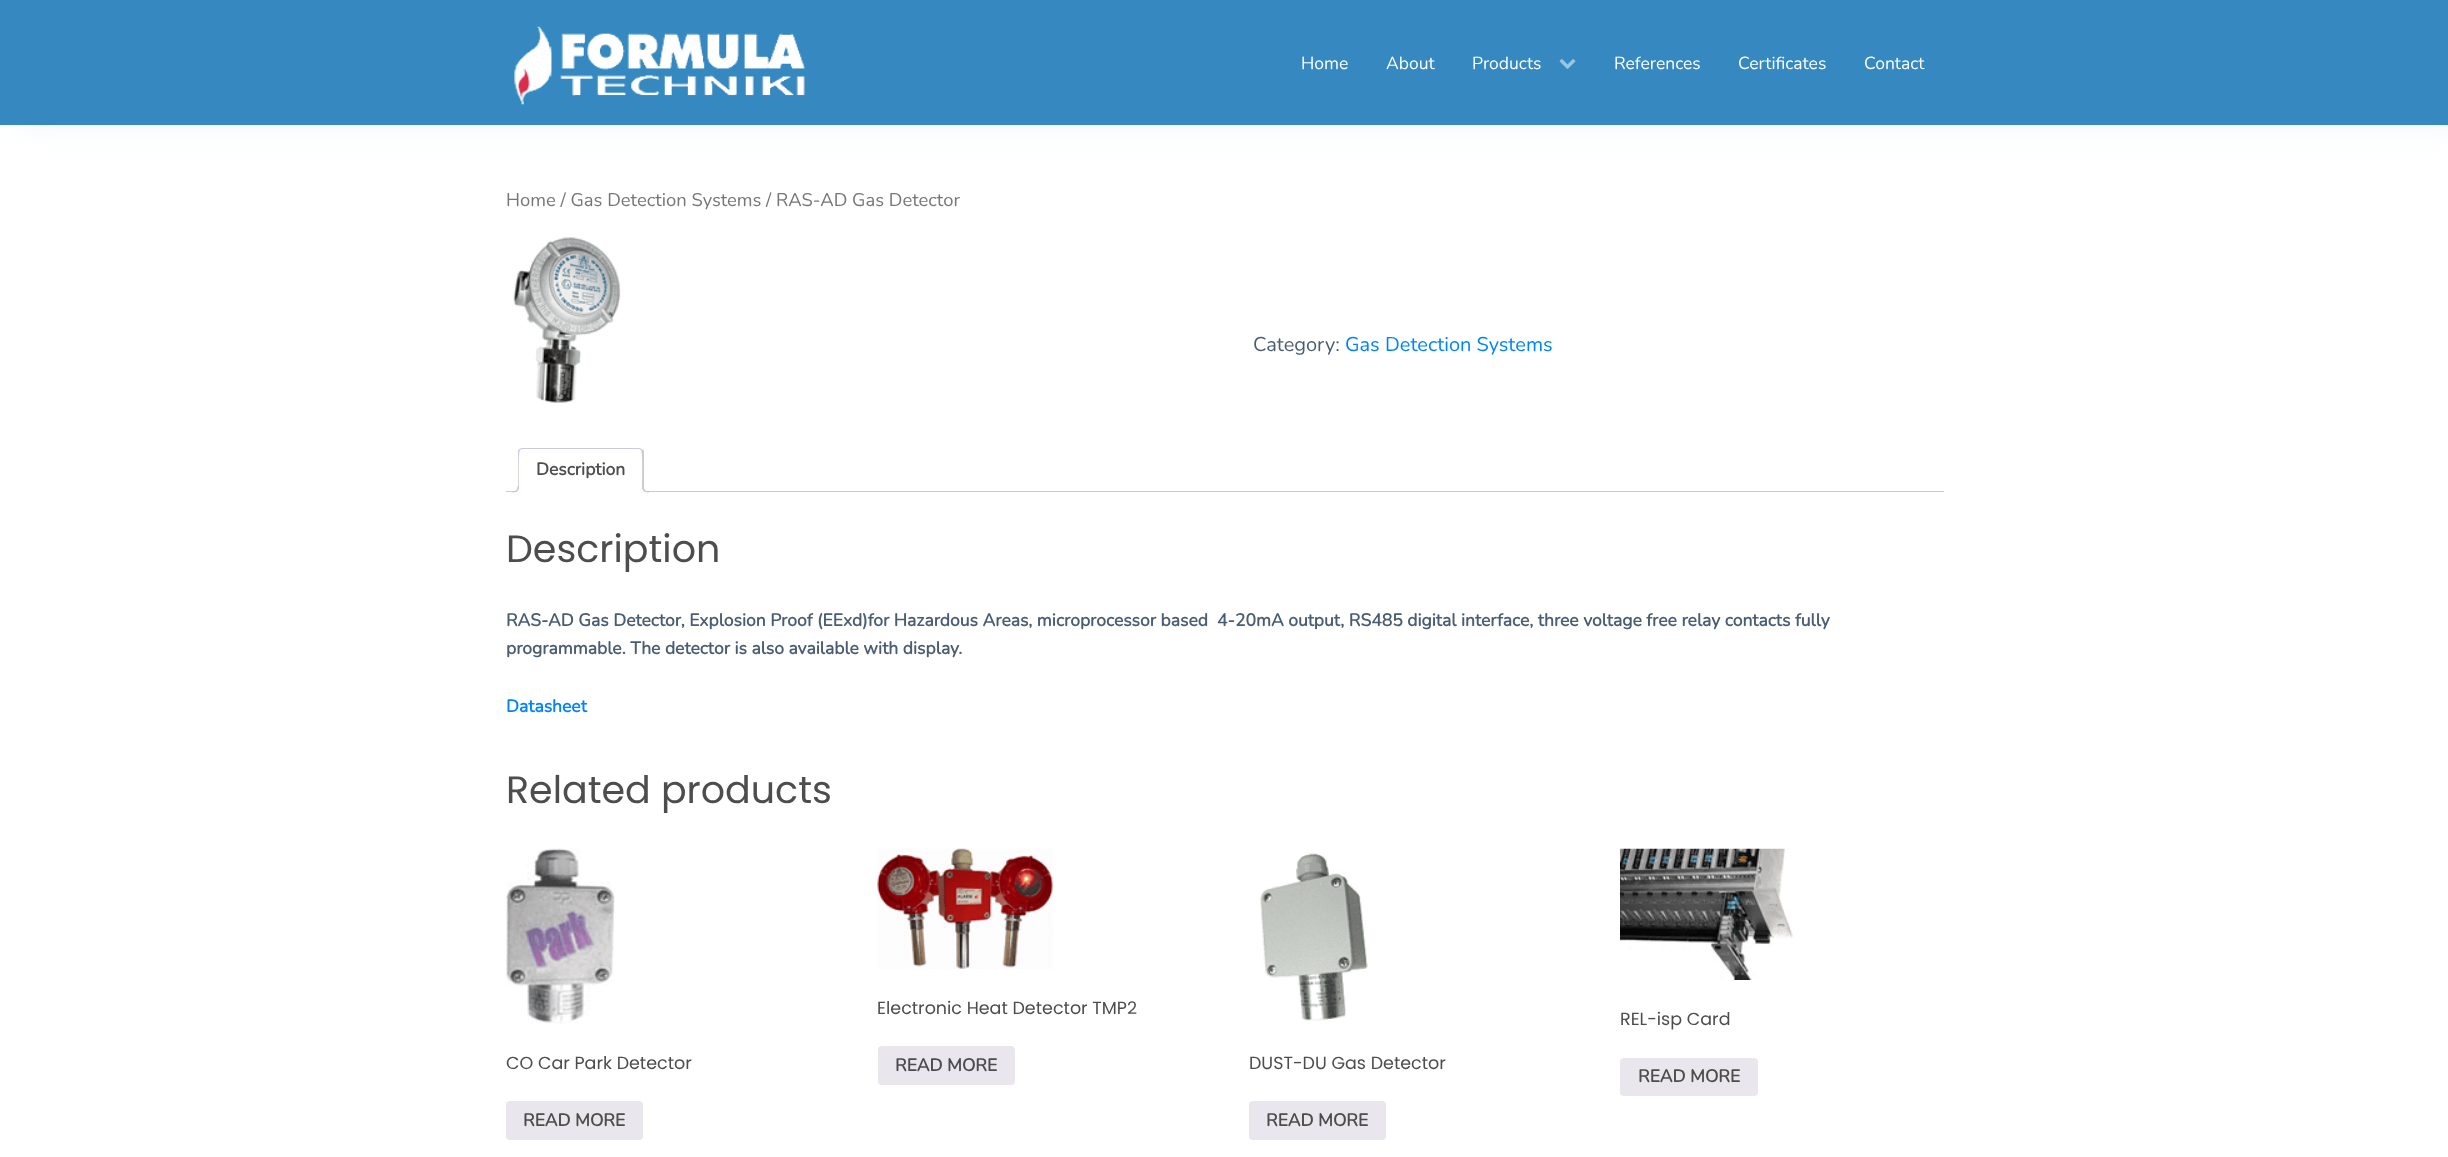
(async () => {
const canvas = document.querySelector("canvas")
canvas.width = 2448
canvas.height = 1157
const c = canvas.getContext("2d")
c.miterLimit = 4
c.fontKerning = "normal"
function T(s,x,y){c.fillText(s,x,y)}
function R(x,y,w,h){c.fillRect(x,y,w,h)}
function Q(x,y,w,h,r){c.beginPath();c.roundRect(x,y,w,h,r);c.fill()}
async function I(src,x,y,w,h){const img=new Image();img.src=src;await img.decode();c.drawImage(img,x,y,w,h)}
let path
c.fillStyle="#fff"
R(0,0,2448,1157)
c.fillStyle="#c8dbef4d"
c.filter="blur(15.5px)"
c.beginPath()
c.rect(19,0,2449,125)
c.fill()
c.filter="none"
c.fillStyle="#3589c0"
R(0,0,2448,125)
await I("1.png",514,26,291,79)
c.font="17.5px Nunito"
c.fillStyle="#fff"
T("Home",1301,69)
T("About",1386,69)
T("Products",1472,69)
await I("2.png",1559,59,17,10)
T("References",1614,69)
T("Certificates",1738,69)
T("Contact",1864,69)
c.font="18.4px Nunito"
c.fillStyle="#767676"
T("Home / Gas Detection Systems / RAS-AD Gas Detector",506,206)
await I("3.png",513,237,108,166)
c.font="20px Nunito"
c.fillStyle="#4b5d73"
T("Category:",1253,351)
c.fillStyle="#0083ff"
T("Gas Detection Systems",1345,351)
c.fillStyle="#cfc8d8"
R(506,491,1438,1)
c.fillStyle="#fff"
c.beginPath()
c.roundRect(518,448,126,45,[5,5,0,0])
c.fill()
c.fillStyle="#cfc8d8"
path = new Path2D("M522 448l-3 1l1 1l2-1h117l2 1l1-1l-3-1z")
c.fill(path)
path = new Path2D("M642 449l2 2v41l-2-1c0-5 1-39-1-41z")
c.fill(path)
c.fillStyle="#fff"
path = new Path2D("M643 492h-125l1-1h123z")
c.fill(path)
c.fillStyle="#cfc8d8"
path = new Path2D("M519 449c-1 1-1 2-1 3v40l1-1c0-5-1-39 1-41z")
c.fill(path)
c.font="bold 17.5px Nunito"
c.fillStyle="#4d4d4d"
T("Description",536,475)
c.save()
c.beginPath()
c.rect(506,448,1438,45)
c.clip()
c.fillStyle="#fff"
path = new Path2D("M515 492.5v2.5c4 0 6-2 6-6h-2.5c-.5 1.5-2 3-3.5 3.5z")
c.fill(path)
c.restore()
c.fillStyle="#cfc8d8"
path = new Path2D("M512.5 486h6.5c0 4.5-2 6.5-6.5 6.5zm0 0h5c0 4-1.5 5-5 5z")
c.fill(path,"evenodd")
c.save()
c.beginPath()
c.rect(506,448,1438,45)
c.clip()
c.fillStyle="#fff"
path = new Path2D("M640 489c0 4 2 6 6 6v-2.5c-1.5-.5-3-2-3.5-3.5z")
c.fill(path)
c.restore()
path = new Path2D("M642.5 486h6.5v6.5c-3.5 0-6.5-1.5-6.5-5zm1.5 0h5v5c-2.5 0-5-.5-5-3.5z")
c.fill(path,"evenodd")
c.font="38px Poppins"
c.fillStyle="#4d4d4d"
T("Description",506,562)
c.font="bold 17.5px Nunito"
c.fillStyle="#4b5d73"
T("RAS-AD Gas Detector, Explosion Proof (EExd)for Hazardous Areas, microprocessor based  4-20mA output, RS485 digital interface, three voltage free relay contacts fully",506,626)
T("programmable. The detector is also available with display.",506,654)
c.fillStyle="#0083ff"
T("Datasheet",506,712)
c.font="38px Poppins"
c.fillStyle="#4d4d4d"
T("Related products",506,803)
await I("4.png",877,848,176,121)
c.font="17.5px Poppins"
T("Electronic Heat Detector TMP2",877,1014)
c.fillStyle="#e9e6ed"
Q(878,1046,137,39,4)
c.font="bold 17.5px Nunito"
c.fillStyle="#4d4d4d"
T("READ MORE",895,1071)
await I("5.png",1620,848,173,132)
c.font="17.5px Poppins"
T("REL-isp Card",1620,1025)
c.fillStyle="#e9e6ed"
Q(1620,1058,138,38,4)
c.font="bold 17.5px Nunito"
c.fillStyle="#4d4d4d"
T("READ MORE",1638,1082)
await I("6.png",506,848,109,176)
c.font="17.5px Poppins"
T("CO Car Park Detector",506,1069)
c.fillStyle="#e9e6ed"
Q(506,1101,137,39,4)
c.font="bold 17.5px Nunito"
c.fillStyle="#4d4d4d"
T("READ MORE",523,1126)
await I("7.png",1260,853,108,168)
c.font="17.5px Poppins"
T("DUST-DU Gas Detector",1249,1069)
c.fillStyle="#e9e6ed"
Q(1249,1101,137,39,4)
c.font="bold 17.5px Nunito"
c.fillStyle="#4d4d4d"
T("READ MORE",1266,1126)
})()
